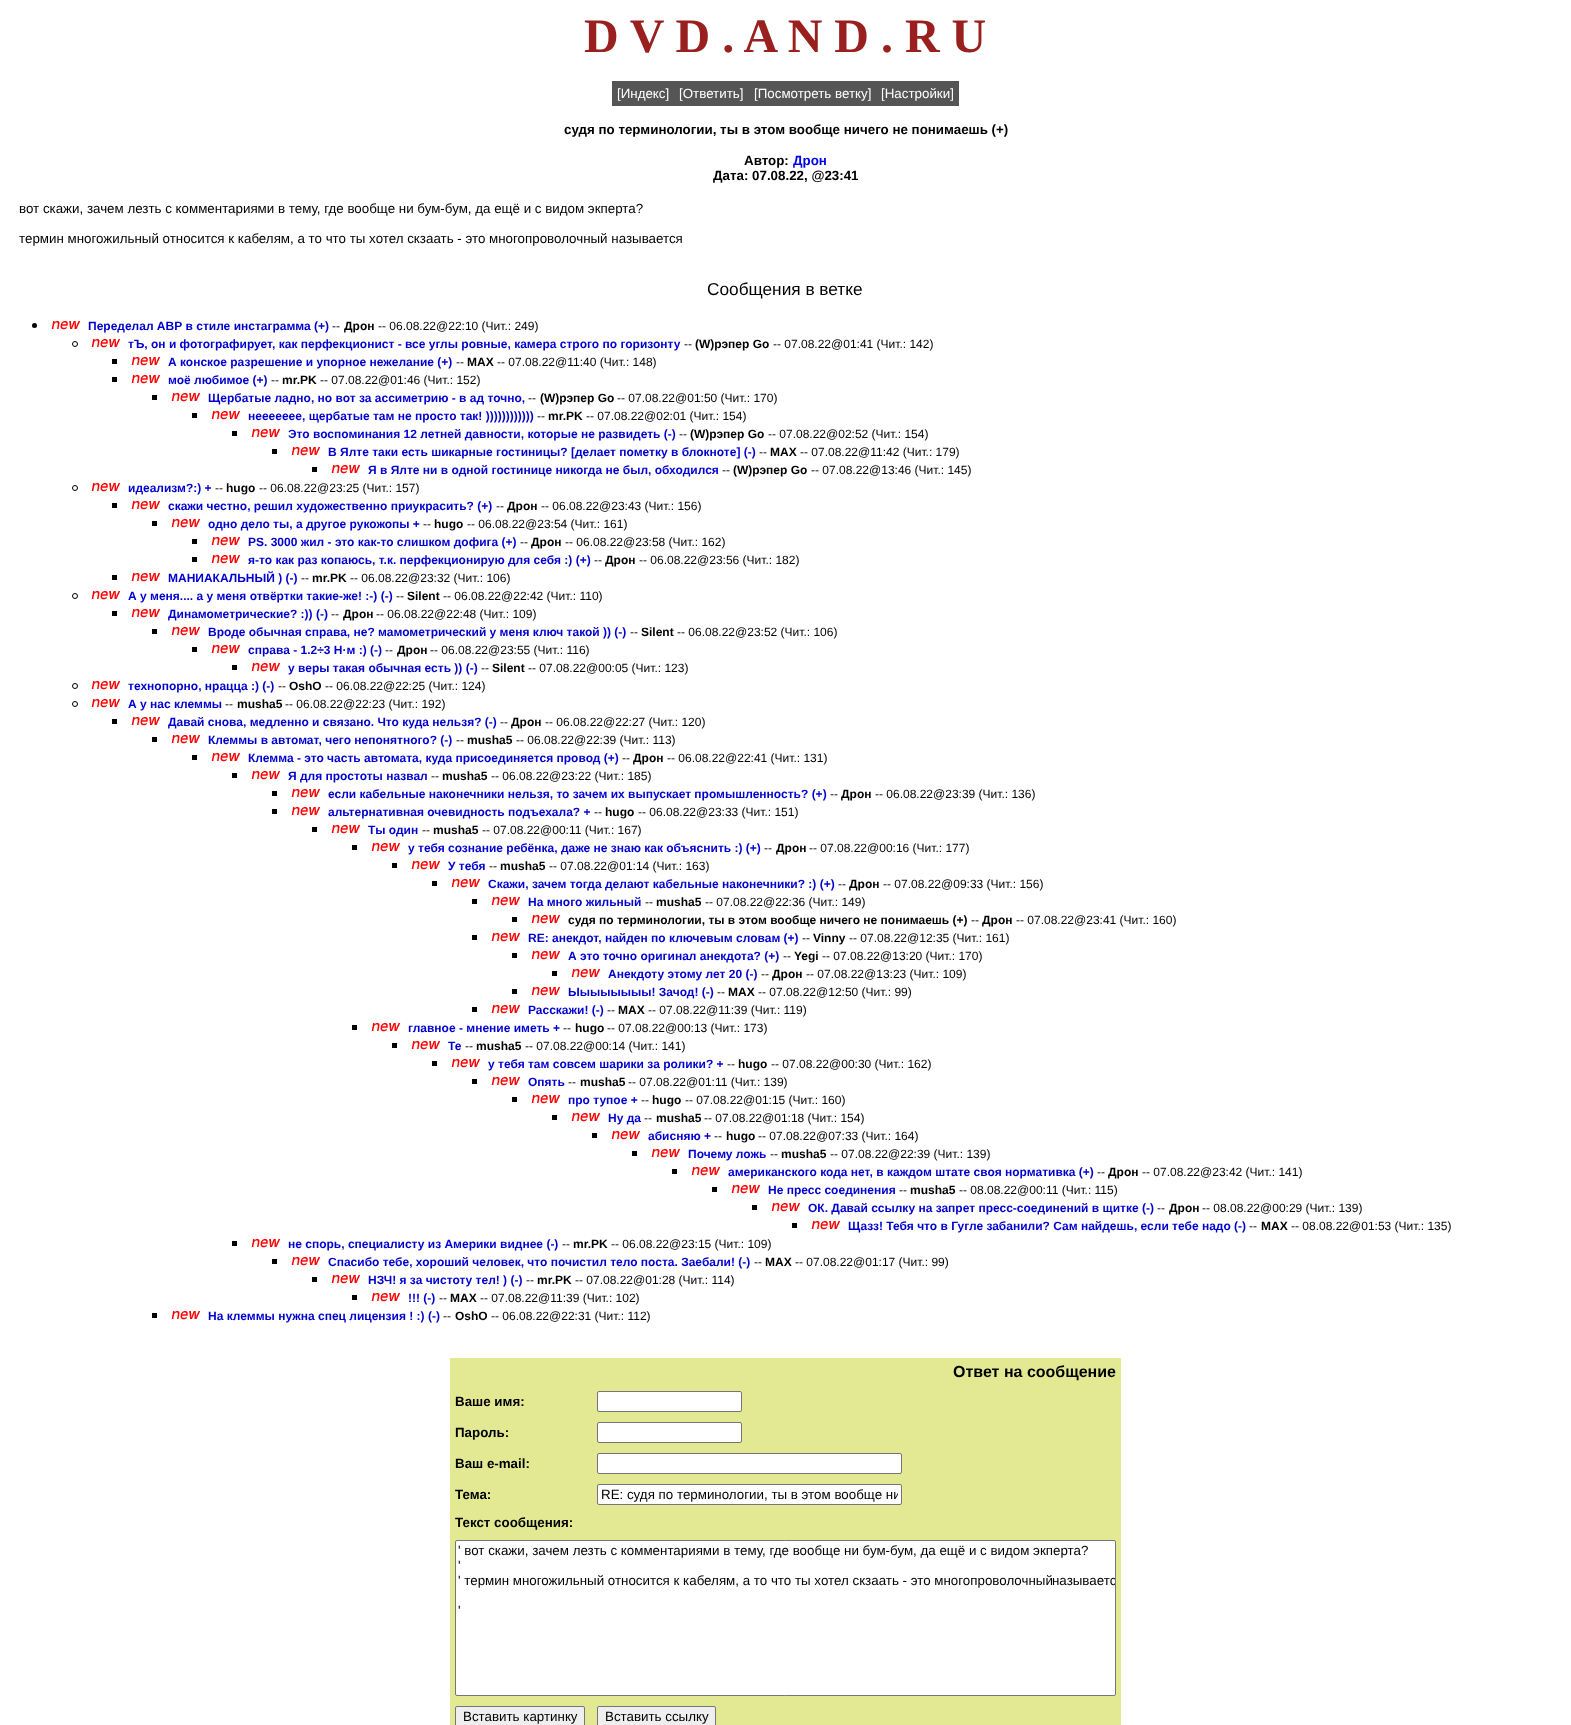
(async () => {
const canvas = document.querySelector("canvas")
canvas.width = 1571
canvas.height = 1725
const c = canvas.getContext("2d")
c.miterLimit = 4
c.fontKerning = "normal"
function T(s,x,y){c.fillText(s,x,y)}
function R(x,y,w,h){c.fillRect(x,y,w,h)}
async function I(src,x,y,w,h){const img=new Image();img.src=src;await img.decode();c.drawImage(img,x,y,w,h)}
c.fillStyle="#fff"
R(0,0,1571,1725)
c.font="bold 48px Liberation Serif"
c.fillStyle="#9a2020"
T("D V D . A N D . R U",584,52)
c.fillStyle="#555"
R(612,81,347,25)
c.font="13.35px Liberation Sans"
c.fillStyle="#fff"
T("[Индекс]",617,98)
T("[Ответить]",679,98)
T("[Посмотреть ветку]",754,98)
T("[Настройки]",881,98)
c.font="bold 13.35px Liberation Sans"
c.fillStyle="#000"
T("судя по терминологии, ты в этом вообще ничего не понимаешь (+)",564,134)
T("Автор:",744,165)
c.fillStyle="#00e"
T("Дрон",793,165)
c.fillStyle="#000"
T("Дата: 07.08.22, @23:41",713,180)
c.font="13.35px Liberation Sans"
T("вот скажи, зачем лезть с комментариями в тему, где вообще ни бум-бум, да ещё и с видом экперта?",19,213)
T("термин многожильный относится к кабелям, а то что ты хотел скзаать - это многопроволочный называется",19,243)
c.font="17.25px Liberation Sans"
T("Сообщения в ветке",707,295)
c.beginPath()
c.arc(34.5,325.5,2.5,0,7)
c.fill()
await I("1.png",51,321,30,9)
c.font="bold 12px Liberation Sans"
c.fillStyle="#0000d0"
T("Переделал АВР в стиле инстаграмма (+)",88,330)
c.font="12px Liberation Sans"
c.fillStyle="#000"
T("--",332,330)
c.font="bold 12px Liberation Sans"
T("Дрон",344,330)
c.font="12px Liberation Sans"
T("-- 06.08.22@22:10 (Чит.: 249)",378,330)
c.beginPath()
c.arc(75,344,2.5,0,7)
c.strokeStyle="#000"
c.stroke()
await I("1.png",91,339,30,9)
c.font="bold 12px Liberation Sans"
c.fillStyle="#0000d0"
T("тЪ, он и фотографирует, как перфекционист - все углы ровные, камера строго по горизонту",128,348)
c.font="12px Liberation Sans"
c.fillStyle="#000"
T("--",684,348)
c.font="bold 12px Liberation Sans"
T("(W)рэпер Gо",695,348)
c.font="12px Liberation Sans"
T("-- 07.08.22@01:41 (Чит.: 142)",773,348)
R(112,359,5,5)
await I("1.png",131,357,30,9)
c.font="bold 12px Liberation Sans"
c.fillStyle="#0000d0"
T("А конское разрешение и упорное нежелание (+)",168,366)
c.font="12px Liberation Sans"
c.fillStyle="#000"
T("--",456,366)
c.font="bold 12px Liberation Sans"
T("MAX",467,366)
c.font="12px Liberation Sans"
T("-- 07.08.22@11:40 (Чит.: 148)",497,366)
R(112,377,5,5)
await I("1.png",131,375,30,9)
c.font="bold 12px Liberation Sans"
c.fillStyle="#0000d0"
T("моё любимое (+)",168,384)
c.font="12px Liberation Sans"
c.fillStyle="#000"
T("--",271,384)
c.font="bold 12px Liberation Sans"
T("mr.PK",282,384)
c.font="12px Liberation Sans"
T("-- 07.08.22@01:46 (Чит.: 152)",320,384)
R(152,395,5,5)
await I("1.png",171,393,30,9)
c.font="bold 12px Liberation Sans"
c.fillStyle="#0000d0"
T("Щербатые ладно, но вот за ассиметрию - в ад точно,",208,402)
c.font="12px Liberation Sans"
c.fillStyle="#000"
T("--",528,402)
c.font="bold 12px Liberation Sans"
T("(W)рэпер Gо",540,402)
c.font="12px Liberation Sans"
T("-- 07.08.22@01:50 (Чит.: 170)",617,402)
R(192,413,5,5)
await I("1.png",211,411,30,9)
c.font="bold 12px Liberation Sans"
c.fillStyle="#0000d0"
T("неееееее, щербатые там не просто так! ))))))))))))",248,420)
c.font="12px Liberation Sans"
c.fillStyle="#000"
T("--",537,420)
c.font="bold 12px Liberation Sans"
T("mr.PK",548,420)
c.font="12px Liberation Sans"
T("-- 07.08.22@02:01 (Чит.: 154)",586,420)
R(232,431,5,5)
await I("1.png",251,429,30,9)
c.font="bold 12px Liberation Sans"
c.fillStyle="#0000d0"
T("Это воспоминания 12 летней давности, которые не развидеть (-)",288,438)
c.font="12px Liberation Sans"
c.fillStyle="#000"
T("--",679,438)
c.font="bold 12px Liberation Sans"
T("(W)рэпер Gо",690,438)
c.font="12px Liberation Sans"
T("-- 07.08.22@02:52 (Чит.: 154)",768,438)
R(272,449,5,5)
await I("1.png",291,447,30,9)
c.font="bold 12px Liberation Sans"
c.fillStyle="#0000d0"
T("В Ялте таки есть шикарные гостиницы? [делает пометку в блокноте] (-)",328,456)
c.font="12px Liberation Sans"
c.fillStyle="#000"
T("--",759,456)
c.font="bold 12px Liberation Sans"
T("MAX",770,456)
c.font="12px Liberation Sans"
T("-- 07.08.22@11:42 (Чит.: 179)",800,456)
R(312,467,5,5)
await I("1.png",331,465,30,9)
c.font="bold 12px Liberation Sans"
c.fillStyle="#0000d0"
T("Я в Ялте ни в одной гостинице никогда не был, обходился",368,474)
c.font="12px Liberation Sans"
c.fillStyle="#000"
T("--",722,474)
c.font="bold 12px Liberation Sans"
T("(W)рэпер Gо",733,474)
c.font="12px Liberation Sans"
T("-- 07.08.22@13:46 (Чит.: 145)",811,474)
c.beginPath()
c.arc(75,488,2.5,0,7)
c.stroke()
await I("1.png",91,483,30,9)
c.font="bold 12px Liberation Sans"
c.fillStyle="#0000d0"
T("идеализм?:) +",128,492)
c.font="12px Liberation Sans"
c.fillStyle="#000"
T("--",215,492)
c.font="bold 12px Liberation Sans"
T("hugo",226,492)
c.font="12px Liberation Sans"
T("-- 06.08.22@23:25 (Чит.: 157)",259,492)
R(112,503,5,5)
await I("1.png",131,501,30,9)
c.font="bold 12px Liberation Sans"
c.fillStyle="#0000d0"
T("скажи честно, решил художественно приукрасить? (+)",168,510)
c.font="12px Liberation Sans"
c.fillStyle="#000"
T("--",496,510)
c.font="bold 12px Liberation Sans"
T("Дрон",507,510)
c.font="12px Liberation Sans"
T("-- 06.08.22@23:43 (Чит.: 156)",541,510)
R(152,521,5,5)
await I("1.png",171,519,30,9)
c.font="bold 12px Liberation Sans"
c.fillStyle="#0000d0"
T("одно дело ты, а другое рукожопы +",208,528)
c.font="12px Liberation Sans"
c.fillStyle="#000"
T("--",423,528)
c.font="bold 12px Liberation Sans"
T("hugo",434,528)
c.font="12px Liberation Sans"
T("-- 06.08.22@23:54 (Чит.: 161)",467,528)
R(192,539,5,5)
await I("1.png",211,537,30,9)
c.font="bold 12px Liberation Sans"
c.fillStyle="#0000d0"
T("PS. 3000 жил - это как-то слишком дофига (+)",248,546)
c.font="12px Liberation Sans"
c.fillStyle="#000"
T("--",520,546)
c.font="bold 12px Liberation Sans"
T("Дрон",531,546)
c.font="12px Liberation Sans"
T("-- 06.08.22@23:58 (Чит.: 162)",565,546)
R(192,557,5,5)
await I("1.png",211,555,30,9)
c.font="bold 12px Liberation Sans"
c.fillStyle="#0000d0"
T("я-то как раз копаюсь, т.к. перфекционирую для себя :) (+)",248,564)
c.font="12px Liberation Sans"
c.fillStyle="#000"
T("--",594,564)
c.font="bold 12px Liberation Sans"
T("Дрон",605,564)
c.font="12px Liberation Sans"
T("-- 06.08.22@23:56 (Чит.: 182)",639,564)
R(112,575,5,5)
await I("1.png",131,573,30,9)
c.font="bold 12px Liberation Sans"
c.fillStyle="#0000d0"
T("МАНИАКАЛЬНЫЙ ) (-)",168,582)
c.font="12px Liberation Sans"
c.fillStyle="#000"
T("--",301,582)
c.font="bold 12px Liberation Sans"
T("mr.PK",312,582)
c.font="12px Liberation Sans"
T("-- 06.08.22@23:32 (Чит.: 106)",350,582)
c.beginPath()
c.arc(75,596,2.5,0,7)
c.stroke()
await I("1.png",91,591,30,9)
c.font="bold 12px Liberation Sans"
c.fillStyle="#0000d0"
T("А у меня.... а у меня отвёртки такие-же! :-) (-)",128,600)
c.font="12px Liberation Sans"
c.fillStyle="#000"
T("--",396,600)
c.font="bold 12px Liberation Sans"
T("Silent",407,600)
c.font="12px Liberation Sans"
T("-- 06.08.22@22:42 (Чит.: 110)",443,600)
R(112,611,5,5)
await I("1.png",131,609,30,9)
c.font="bold 12px Liberation Sans"
c.fillStyle="#0000d0"
T("Динамометрические? :)) (-)",168,618)
c.font="12px Liberation Sans"
c.fillStyle="#000"
T("--",331,618)
c.font="bold 12px Liberation Sans"
T("Дрон",343,618)
c.font="12px Liberation Sans"
T("-- 06.08.22@22:48 (Чит.: 109)",376,618)
R(152,629,5,5)
await I("1.png",171,627,30,9)
c.font="bold 12px Liberation Sans"
c.fillStyle="#0000d0"
T("Вроде обычная справа, не? мамометрический у меня ключ такой )) (-)",208,636)
c.font="12px Liberation Sans"
c.fillStyle="#000"
T("--",630,636)
c.font="bold 12px Liberation Sans"
T("Silent",641,636)
c.font="12px Liberation Sans"
T("-- 06.08.22@23:52 (Чит.: 106)",677,636)
R(192,647,5,5)
await I("1.png",211,645,30,9)
c.font="bold 12px Liberation Sans"
c.fillStyle="#0000d0"
T("справа - 1.2÷3 Н·м :) (-)",248,654)
c.font="12px Liberation Sans"
c.fillStyle="#000"
T("--",385,654)
c.font="bold 12px Liberation Sans"
T("Дрон",397,654)
c.font="12px Liberation Sans"
T("-- 06.08.22@23:55 (Чит.: 116)",430,654)
R(232,665,5,5)
await I("1.png",251,663,30,9)
c.font="bold 12px Liberation Sans"
c.fillStyle="#0000d0"
T("у веры такая обычная есть )) (-)",288,672)
c.font="12px Liberation Sans"
c.fillStyle="#000"
T("--",481,672)
c.font="bold 12px Liberation Sans"
T("Silent",492,672)
c.font="12px Liberation Sans"
T("-- 07.08.22@00:05 (Чит.: 123)",528,672)
c.beginPath()
c.arc(75,686,2.5,0,7)
c.stroke()
await I("1.png",91,681,30,9)
c.font="bold 12px Liberation Sans"
c.fillStyle="#0000d0"
T("технопорно, нрацца :) (-)",128,690)
c.font="12px Liberation Sans"
c.fillStyle="#000"
T("--",278,690)
c.font="bold 12px Liberation Sans"
T("OshO",289,690)
c.font="12px Liberation Sans"
T("-- 06.08.22@22:25 (Чит.: 124)",325,690)
c.beginPath()
c.arc(75,704,2.5,0,7)
c.stroke()
await I("1.png",91,699,30,9)
c.font="bold 12px Liberation Sans"
c.fillStyle="#0000d0"
T("А у нас клеммы",128,708)
c.font="12px Liberation Sans"
c.fillStyle="#000"
T("--",225,708)
c.font="bold 12px Liberation Sans"
T("musha5",237,708)
c.font="12px Liberation Sans"
T("-- 06.08.22@22:23 (Чит.: 192)",285,708)
R(112,719,5,5)
await I("1.png",131,717,30,9)
c.font="bold 12px Liberation Sans"
c.fillStyle="#0000d0"
T("Давай снова, медленно и связано. Что куда нельзя? (-)",168,726)
c.font="12px Liberation Sans"
c.fillStyle="#000"
T("--",500,726)
c.font="bold 12px Liberation Sans"
T("Дрон",511,726)
c.font="12px Liberation Sans"
T("-- 06.08.22@22:27 (Чит.: 120)",545,726)
R(152,737,5,5)
await I("1.png",171,735,30,9)
c.font="bold 12px Liberation Sans"
c.fillStyle="#0000d0"
T("Клеммы в автомат, чего непонятного? (-)",208,744)
c.font="12px Liberation Sans"
c.fillStyle="#000"
T("--",456,744)
c.font="bold 12px Liberation Sans"
T("musha5",467,744)
c.font="12px Liberation Sans"
T("-- 06.08.22@22:39 (Чит.: 113)",516,744)
R(192,755,5,5)
await I("1.png",211,753,30,9)
c.font="bold 12px Liberation Sans"
c.fillStyle="#0000d0"
T("Клемма - это часть автомата, куда присоединяется провод (+)",248,762)
c.font="12px Liberation Sans"
c.fillStyle="#000"
T("--",622,762)
c.font="bold 12px Liberation Sans"
T("Дрон",633,762)
c.font="12px Liberation Sans"
T("-- 06.08.22@22:41 (Чит.: 131)",667,762)
R(232,773,5,5)
await I("1.png",251,771,30,9)
c.font="bold 12px Liberation Sans"
c.fillStyle="#0000d0"
T("Я для простоты назвал",288,780)
c.font="12px Liberation Sans"
c.fillStyle="#000"
T("--",431,780)
c.font="bold 12px Liberation Sans"
T("musha5",442,780)
c.font="12px Liberation Sans"
T("-- 06.08.22@23:22 (Чит.: 185)",491,780)
R(272,791,5,5)
await I("1.png",291,789,30,9)
c.font="bold 12px Liberation Sans"
c.fillStyle="#0000d0"
T("если кабельные наконечники нельзя, то зачем их выпускает промышленность? (+)",328,798)
c.font="12px Liberation Sans"
c.fillStyle="#000"
T("--",830,798)
c.font="bold 12px Liberation Sans"
T("Дрон",841,798)
c.font="12px Liberation Sans"
T("-- 06.08.22@23:39 (Чит.: 136)",875,798)
R(272,809,5,5)
await I("1.png",291,807,30,9)
c.font="bold 12px Liberation Sans"
c.fillStyle="#0000d0"
T("альтернативная очевидность подъехала? +",328,816)
c.font="12px Liberation Sans"
c.fillStyle="#000"
T("--",594,816)
c.font="bold 12px Liberation Sans"
T("hugo",605,816)
c.font="12px Liberation Sans"
T("-- 06.08.22@23:33 (Чит.: 151)",638,816)
R(312,827,5,5)
await I("1.png",331,825,30,9)
c.font="bold 12px Liberation Sans"
c.fillStyle="#0000d0"
T("Ты один",368,834)
c.font="12px Liberation Sans"
c.fillStyle="#000"
T("--",422,834)
c.font="bold 12px Liberation Sans"
T("musha5",433,834)
c.font="12px Liberation Sans"
T("-- 07.08.22@00:11 (Чит.: 167)",482,834)
R(352,845,5,5)
await I("1.png",371,843,30,9)
c.font="bold 12px Liberation Sans"
c.fillStyle="#0000d0"
T("у тебя сознание ребёнка, даже не знаю как объяснить :) (+)",408,852)
c.font="12px Liberation Sans"
c.fillStyle="#000"
T("--",764,852)
c.font="bold 12px Liberation Sans"
T("Дрон",776,852)
c.font="12px Liberation Sans"
T("-- 07.08.22@00:16 (Чит.: 177)",809,852)
R(392,863,5,5)
await I("1.png",411,861,30,9)
c.font="bold 12px Liberation Sans"
c.fillStyle="#0000d0"
T("У тебя",448,870)
c.font="12px Liberation Sans"
c.fillStyle="#000"
T("--",489,870)
c.font="bold 12px Liberation Sans"
T("musha5",500,870)
c.font="12px Liberation Sans"
T("-- 07.08.22@01:14 (Чит.: 163)",549,870)
R(432,881,5,5)
await I("1.png",451,879,30,9)
c.font="bold 12px Liberation Sans"
c.fillStyle="#0000d0"
T("Скажи, зачем тогда делают кабельные наконечники? :) (+)",488,888)
c.font="12px Liberation Sans"
c.fillStyle="#000"
T("--",838,888)
c.font="bold 12px Liberation Sans"
T("Дрон",849,888)
c.font="12px Liberation Sans"
T("-- 07.08.22@09:33 (Чит.: 156)",883,888)
R(472,899,5,5)
await I("1.png",491,897,30,9)
c.font="bold 12px Liberation Sans"
c.fillStyle="#0000d0"
T("На много жильный",528,906)
c.font="12px Liberation Sans"
c.fillStyle="#000"
T("--",645,906)
c.font="bold 12px Liberation Sans"
T("musha5",656,906)
c.font="12px Liberation Sans"
T("-- 07.08.22@22:36 (Чит.: 149)",705,906)
R(512,917,5,5)
await I("1.png",531,915,30,9)
c.font="bold 12px Liberation Sans"
T("судя по терминологии, ты в этом вообще ничего не понимаешь (+)",568,924)
c.font="12px Liberation Sans"
T("--",971,924)
c.font="bold 12px Liberation Sans"
T("Дрон",982,924)
c.font="12px Liberation Sans"
T("-- 07.08.22@23:41 (Чит.: 160)",1016,924)
R(472,935,5,5)
await I("1.png",491,933,30,9)
c.font="bold 12px Liberation Sans"
c.fillStyle="#0000d0"
T("RE: анекдот, найден по ключевым словам (+)",528,942)
c.font="12px Liberation Sans"
c.fillStyle="#000"
T("--",802,942)
c.font="bold 12px Liberation Sans"
T("Vinny",813,942)
c.font="12px Liberation Sans"
T("-- 07.08.22@12:35 (Чит.: 161)",849,942)
R(512,953,5,5)
await I("1.png",531,951,30,9)
c.font="bold 12px Liberation Sans"
c.fillStyle="#0000d0"
T("А это точно оригинал анекдота? (+)",568,960)
c.font="12px Liberation Sans"
c.fillStyle="#000"
T("--",783,960)
c.font="bold 12px Liberation Sans"
T("Yegi",794,960)
c.font="12px Liberation Sans"
T("-- 07.08.22@13:20 (Чит.: 170)",822,960)
R(552,971,5,5)
await I("1.png",571,969,30,9)
c.font="bold 12px Liberation Sans"
c.fillStyle="#0000d0"
T("Анекдоту этому лет 20 (-)",608,978)
c.font="12px Liberation Sans"
c.fillStyle="#000"
T("--",761,978)
c.font="bold 12px Liberation Sans"
T("Дрон",772,978)
c.font="12px Liberation Sans"
T("-- 07.08.22@13:23 (Чит.: 109)",806,978)
R(512,989,5,5)
await I("1.png",531,987,30,9)
c.font="bold 12px Liberation Sans"
c.fillStyle="#0000d0"
T("Ыыыыыыыы! Зачод! (-)",568,996)
c.font="12px Liberation Sans"
c.fillStyle="#000"
T("--",717,996)
c.font="bold 12px Liberation Sans"
T("MAX",728,996)
c.font="12px Liberation Sans"
T("-- 07.08.22@12:50 (Чит.: 99)",758,996)
R(472,1007,5,5)
await I("1.png",491,1005,30,9)
c.font="bold 12px Liberation Sans"
c.fillStyle="#0000d0"
T("Расскажи! (-)",528,1014)
c.font="12px Liberation Sans"
c.fillStyle="#000"
T("--",607,1014)
c.font="bold 12px Liberation Sans"
T("MAX",618,1014)
c.font="12px Liberation Sans"
T("-- 07.08.22@11:39 (Чит.: 119)",648,1014)
R(352,1025,5,5)
await I("1.png",371,1023,30,9)
c.font="bold 12px Liberation Sans"
c.fillStyle="#0000d0"
T("главное - мнение иметь +",408,1032)
c.font="12px Liberation Sans"
c.fillStyle="#000"
T("--",563,1032)
c.font="bold 12px Liberation Sans"
T("hugo",575,1032)
c.font="12px Liberation Sans"
T("-- 07.08.22@00:13 (Чит.: 173)",607,1032)
R(392,1043,5,5)
await I("1.png",411,1041,30,9)
c.font="bold 12px Liberation Sans"
c.fillStyle="#0000d0"
T("Те",448,1050)
c.font="12px Liberation Sans"
c.fillStyle="#000"
T("--",465,1050)
c.font="bold 12px Liberation Sans"
T("musha5",476,1050)
c.font="12px Liberation Sans"
T("-- 07.08.22@00:14 (Чит.: 141)",525,1050)
R(432,1061,5,5)
await I("1.png",451,1059,30,9)
c.font="bold 12px Liberation Sans"
c.fillStyle="#0000d0"
T("у тебя там совсем шарики за ролики? +",488,1068)
c.font="12px Liberation Sans"
c.fillStyle="#000"
T("--",727,1068)
c.font="bold 12px Liberation Sans"
T("hugo",738,1068)
c.font="12px Liberation Sans"
T("-- 07.08.22@00:30 (Чит.: 162)",771,1068)
R(472,1079,5,5)
await I("1.png",491,1077,30,9)
c.font="bold 12px Liberation Sans"
c.fillStyle="#0000d0"
T("Опять",528,1086)
c.font="12px Liberation Sans"
c.fillStyle="#000"
T("--",568,1086)
c.font="bold 12px Liberation Sans"
T("musha5",580,1086)
c.font="12px Liberation Sans"
T("-- 07.08.22@01:11 (Чит.: 139)",628,1086)
R(512,1097,5,5)
await I("1.png",531,1095,30,9)
c.font="bold 12px Liberation Sans"
c.fillStyle="#0000d0"
T("про тупое +",568,1104)
c.font="12px Liberation Sans"
c.fillStyle="#000"
T("--",641,1104)
c.font="bold 12px Liberation Sans"
T("hugo",652,1104)
c.font="12px Liberation Sans"
T("-- 07.08.22@01:15 (Чит.: 160)",685,1104)
R(552,1115,5,5)
await I("1.png",571,1113,30,9)
c.font="bold 12px Liberation Sans"
c.fillStyle="#0000d0"
T("Ну да",608,1122)
c.font="12px Liberation Sans"
c.fillStyle="#000"
T("--",644,1122)
c.font="bold 12px Liberation Sans"
T("musha5",656,1122)
c.font="12px Liberation Sans"
T("-- 07.08.22@01:18 (Чит.: 154)",704,1122)
R(592,1133,5,5)
await I("1.png",611,1131,30,9)
c.font="bold 12px Liberation Sans"
c.fillStyle="#0000d0"
T("абисняю +",648,1140)
c.font="12px Liberation Sans"
c.fillStyle="#000"
T("--",714,1140)
c.font="bold 12px Liberation Sans"
T("hugo",726,1140)
c.font="12px Liberation Sans"
T("-- 07.08.22@07:33 (Чит.: 164)",758,1140)
R(632,1151,5,5)
await I("1.png",651,1149,30,9)
c.font="bold 12px Liberation Sans"
c.fillStyle="#0000d0"
T("Почему ложь",688,1158)
c.font="12px Liberation Sans"
c.fillStyle="#000"
T("--",770,1158)
c.font="bold 12px Liberation Sans"
T("musha5",781,1158)
c.font="12px Liberation Sans"
T("-- 07.08.22@22:39 (Чит.: 139)",830,1158)
R(672,1169,5,5)
await I("1.png",691,1167,30,9)
c.font="bold 12px Liberation Sans"
c.fillStyle="#0000d0"
T("американского кода нет, в каждом штате своя нормативка (+)",728,1176)
c.font="12px Liberation Sans"
c.fillStyle="#000"
T("--",1097,1176)
c.font="bold 12px Liberation Sans"
T("Дрон",1108,1176)
c.font="12px Liberation Sans"
T("-- 07.08.22@23:42 (Чит.: 141)",1142,1176)
R(712,1187,5,5)
await I("1.png",731,1185,30,9)
c.font="bold 12px Liberation Sans"
c.fillStyle="#0000d0"
T("Не пресс соединения",768,1194)
c.font="12px Liberation Sans"
c.fillStyle="#000"
T("--",899,1194)
c.font="bold 12px Liberation Sans"
T("musha5",910,1194)
c.font="12px Liberation Sans"
T("-- 08.08.22@00:11 (Чит.: 115)",959,1194)
R(752,1205,5,5)
await I("1.png",771,1203,30,9)
c.font="bold 12px Liberation Sans"
c.fillStyle="#0000d0"
T("ОК. Давай ссылку на запрет пресс-соединений в щитке (-)",808,1212)
c.font="12px Liberation Sans"
c.fillStyle="#000"
T("--",1157,1212)
c.font="bold 12px Liberation Sans"
T("Дрон",1169,1212)
c.font="12px Liberation Sans"
T("-- 08.08.22@00:29 (Чит.: 139)",1202,1212)
R(792,1223,5,5)
await I("1.png",811,1221,30,9)
c.font="bold 12px Liberation Sans"
c.fillStyle="#0000d0"
T("Щазз! Тебя что в Гугле забанили? Сам найдешь, если тебе надо (-)",848,1230)
c.font="12px Liberation Sans"
c.fillStyle="#000"
T("--",1249,1230)
c.font="bold 12px Liberation Sans"
T("MAX",1261,1230)
c.font="12px Liberation Sans"
T("-- 08.08.22@01:53 (Чит.: 135)",1291,1230)
R(232,1241,5,5)
await I("1.png",251,1239,30,9)
c.font="bold 12px Liberation Sans"
c.fillStyle="#0000d0"
T("не спорь, специалисту из Америки виднее (-)",288,1248)
c.font="12px Liberation Sans"
c.fillStyle="#000"
T("--",562,1248)
c.font="bold 12px Liberation Sans"
T("mr.PK",573,1248)
c.font="12px Liberation Sans"
T("-- 06.08.22@23:15 (Чит.: 109)",611,1248)
R(272,1259,5,5)
await I("1.png",291,1257,30,9)
c.font="bold 12px Liberation Sans"
c.fillStyle="#0000d0"
T("Спасибо тебе, хороший человек, что почистил тело поста. Заебали! (-)",328,1266)
c.font="12px Liberation Sans"
c.fillStyle="#000"
T("--",754,1266)
c.font="bold 12px Liberation Sans"
T("MAX",765,1266)
c.font="12px Liberation Sans"
T("-- 07.08.22@01:17 (Чит.: 99)",795,1266)
R(312,1277,5,5)
await I("1.png",331,1275,30,9)
c.font="bold 12px Liberation Sans"
c.fillStyle="#0000d0"
T("НЗЧ! я за чистоту тел! ) (-)",368,1284)
c.font="12px Liberation Sans"
c.fillStyle="#000"
T("--",526,1284)
c.font="bold 12px Liberation Sans"
T("mr.PK",537,1284)
c.font="12px Liberation Sans"
T("-- 07.08.22@01:28 (Чит.: 114)",575,1284)
R(352,1295,5,5)
await I("1.png",371,1293,30,9)
c.font="bold 12px Liberation Sans"
c.fillStyle="#0000d0"
T("!!! (-)",408,1302)
c.font="12px Liberation Sans"
c.fillStyle="#000"
T("--",439,1302)
c.font="bold 12px Liberation Sans"
T("MAX",450,1302)
c.font="12px Liberation Sans"
T("-- 07.08.22@11:39 (Чит.: 102)",480,1302)
R(152,1313,5,5)
await I("1.png",171,1311,30,9)
c.font="bold 12px Liberation Sans"
c.fillStyle="#0000d0"
T("На клеммы нужна спец лицензия ! :) (-)",208,1320)
c.font="12px Liberation Sans"
c.fillStyle="#000"
T("--",443,1320)
c.font="bold 12px Liberation Sans"
T("OshO",455,1320)
c.font="12px Liberation Sans"
T("-- 06.08.22@22:31 (Чит.: 112)",491,1320)
c.fillStyle="#e2e992"
R(450,1358,671,28)
c.font="bold 16px Liberation Sans"
c.fillStyle="#000"
T("Ответ на сообщение",953,1377)
c.fillStyle="#e2e992"
R(450,1386,671,31)
c.font="bold 13.35px Liberation Sans"
c.fillStyle="#000"
T("Ваше имя:",455,1406)
c.fillStyle="#fff"
c.beginPath()
c.roundRect(597.5,1391.5,144,20,1.5)
c.fill()
c.strokeStyle="#767676"
c.stroke()
c.fillStyle="#e2e992"
R(450,1417,671,31)
c.fillStyle="#000"
T("Пароль:",455,1437)
c.fillStyle="#fff"
c.beginPath()
c.roundRect(597.5,1422.5,144,20,1.5)
c.fill()
c.stroke()
c.fillStyle="#e2e992"
R(450,1448,671,31)
c.fillStyle="#000"
T("Ваш e-mail:",455,1468)
c.fillStyle="#fff"
c.beginPath()
c.roundRect(597.5,1453.5,304,20,1.5)
c.fill()
c.stroke()
c.fillStyle="#e2e992"
R(450,1479,671,246)
c.fillStyle="#000"
T("Тема:",455,1499)
c.fillStyle="#fff"
c.beginPath()
c.roundRect(597.5,1484.5,304,20,1.5)
c.fill()
c.stroke()
c.save()
c.beginPath()
c.rect(601,1487,297,15)
c.clip()
c.font="13.35px Liberation Sans"
c.fillStyle="#000"
T("RE: судя по терминологии, ты в этом вообще ни",601,1499)
c.restore()
c.fillStyle="#000"
T("Текст сообщения:",455,1527)
c.fillStyle="#fff"
c.beginPath()
c.roundRect(455.5,1540.5,660,155,1.5)
c.fill()
c.stroke()
c.font="13.35px Liberation Sans"
c.fillStyle="#000"
T("' вот скажи, зачем лезть с комментариями в тему, где вообще ни бум-бум, да ещё и с видом экперта?",458,1555)
T("'",458,1570)
T("' термин многожильный относится к кабелям, а то что ты хотел скзаать - это многопроволочный",458,1585)
c.save()
c.beginPath()
c.rect(456,1541,659,154)
c.clip()
T("называетс",1052,1585)
c.restore()
T("'",458,1615)
c.fillStyle="#efefef"
c.beginPath()
c.roundRect(455.5,1706.5,129,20,1.5)
c.fill()
c.stroke()
c.fillStyle="#000"
T("Вставить картинку",463,1721)
c.fillStyle="#efefef"
c.beginPath()
c.roundRect(597.5,1706.5,118,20,1.5)
c.fill()
c.stroke()
c.fillStyle="#000"
T("Вставить ссылку",605,1721)
})()
